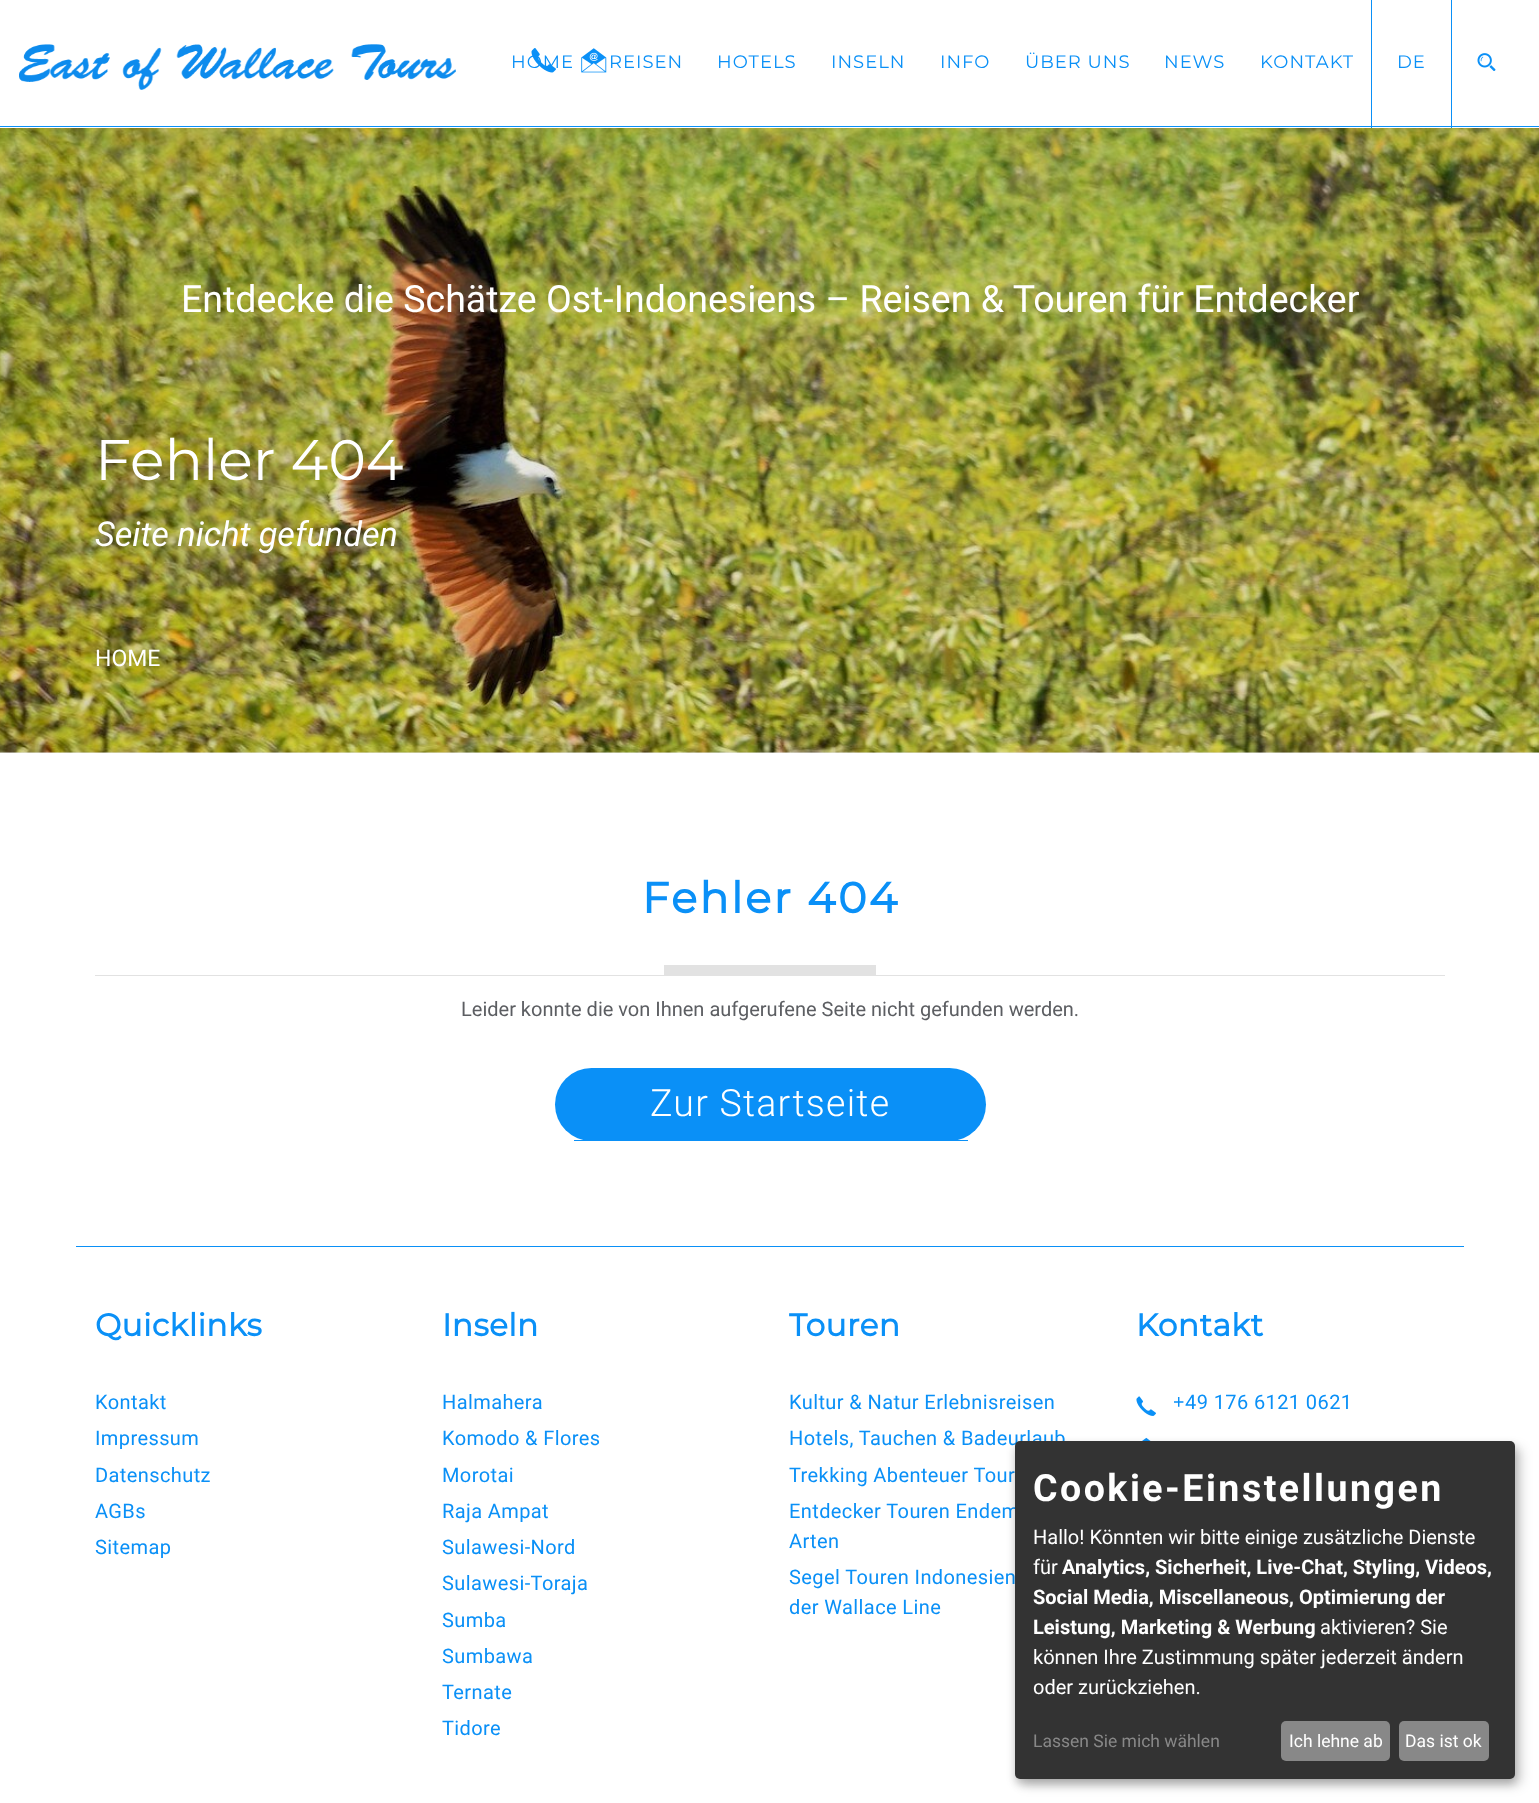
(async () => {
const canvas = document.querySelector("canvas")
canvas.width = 1539
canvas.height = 1803
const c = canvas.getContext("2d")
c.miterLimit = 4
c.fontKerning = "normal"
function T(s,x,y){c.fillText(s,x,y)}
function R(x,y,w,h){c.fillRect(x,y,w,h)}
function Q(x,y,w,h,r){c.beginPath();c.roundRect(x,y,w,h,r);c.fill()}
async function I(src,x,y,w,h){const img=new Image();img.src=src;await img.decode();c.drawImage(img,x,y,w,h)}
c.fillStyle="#fff"
R(0,0,1539,1803)
c.fillStyle="#e6e6e6"
R(0,752,1539,1)
c.fillStyle="#0a90f7"
R(0,126,1539,1)
await I("1.png",19,44,437,46)
c.letterSpacing="1px"
c.font="18px Montserrat"
T("HOME",511,68)
await I("2.png",531,48,25,25)
await I("3.png",581,48,26,25)
T("REISEN",609,68)
T("HOTELS",717,68)
T("INSELN",831,68)
T("INFO",940,68)
T("ÜBER UNS",1025,68)
T("NEWS",1164,68)
T("KONTAKT",1260,68)
R(1371,0,1,128)
T("DE",1397,68)
R(1451,0,1,128)
await I("4.png",1477,53,19,18)
await I("5.png",0,128,1539,625)
c.letterSpacing="0px"
c.font="37.5px Roboto"
c.fillStyle="#fff"
T("Entdecke die Schätze Ost-Indonesiens – Reisen & Touren für Entdecker",181,312)
c.font="57px Montserrat"
T("Fehler 404",95,480)
c.font="italic 34.25px Roboto"
T("Seite nicht gefunden",95,546)
c.font="23px Roboto"
T("HOME",95,666)
c.letterSpacing="2.5px"
c.font="bold 43px Montserrat"
c.fillStyle="#0a90f7"
T("Fehler 404",642,913)
c.fillStyle="#e2e2e2"
R(95,975,1350,1)
R(664,965,212,10)
c.letterSpacing="0px"
c.font="20px Roboto"
c.fillStyle="#5c5e62"
T("Leider konnte die von Ihnen aufgerufene Seite nicht gefunden werden.",461,1016)
c.fillStyle="#0a90f7"
Q(555,1068,431,73,36.5)
R(574,1140,394,1)
c.letterSpacing="1.25px"
c.font="300 37.5px Roboto"
c.fillStyle="#fff"
T("Zur Startseite",650,1116)
c.fillStyle="#0a90f7"
R(76,1246,1388,1)
c.letterSpacing="0.4px"
c.font="bold 31.25px Montserrat"
T("Quicklinks",95,1336)
c.font="20px Roboto"
T("Kontakt",95,1409)
T("Impressum",95,1445)
T("Datenschutz",95,1482)
T("AGBs",95,1518)
T("Sitemap",95,1554)
c.font="bold 31.25px Montserrat"
T("Inseln",442,1336)
c.font="20px Roboto"
T("Halmahera",442,1409)
T("Komodo & Flores",442,1445)
T("Morotai",442,1482)
T("Raja Ampat",442,1518)
T("Sulawesi-Nord",442,1554)
T("Sulawesi-Toraja",442,1590)
T("Sumba",442,1627)
T("Sumbawa",442,1663)
T("Ternate",442,1699)
T("Tidore",442,1735)
c.font="bold 31.25px Montserrat"
T("Touren",789,1336)
c.font="20px Roboto"
T("Kultur & Natur Erlebnisreisen",789,1409)
T("Hotels, Tauchen & Badeurlaub",789,1445)
T("Trekking Abenteuer Tour",789,1482)
T("Entdecker Touren Endem",789,1518)
T("Arten",789,1548)
T("Segel Touren Indonesien",789,1584)
T("der Wallace Line",789,1614)
c.font="bold 31.25px Montserrat"
T("Kontakt",1136,1336)
await I("6.png",1136,1396,20,20)
c.font="20px Noto Sans"
T("+",1173,1409)
c.font="20px Roboto"
T("49 176 6121 0621",1185,1409)
await I("7.png",1142,1437,9,4)
c.fillStyle="#00000030"
c.filter="blur(6px)"
c.beginPath()
c.roundRect(1021,1448,500,337,5)
c.fill()
c.filter="none"
c.fillStyle="#00000033"
c.filter="blur(4px)"
c.beginPath()
c.roundRect(1015,1446,500,338,5)
c.fill()
c.filter="none"
c.fillStyle="#333"
Q(1015,1441,500,338,5)
c.letterSpacing="2.5px"
c.font="bold 37.5px Roboto"
c.fillStyle="#fff"
T("Cookie-Einstellungen",1033,1501)
c.letterSpacing="0px"
c.font="20px Roboto"
T("Hallo! Könnten wir bitte einige zusätzliche Dienste",1033,1544)
T("für",1033,1574)
c.font="bold 20px Roboto"
T("Analytics, Sicherheit, Live-Chat, Styling, Videos,",1062,1574)
T("Social Media, Miscellaneous, Optimierung der",1033,1604)
T("Leistung, Marketing & Werbung",1033,1634)
c.font="20px Roboto"
T("aktivieren? Sie",1320,1634)
T("können Ihre Zustimmung später jederzeit ändern",1033,1664)
T("oder zurückziehen.",1033,1694)
c.font="17.5px Roboto"
c.fillStyle="#888"
T("Lassen Sie mich wählen",1033,1747)
Q(1281,1721,109,40,5)
c.fillStyle="#fff"
T("Ich lehne ab",1289,1747)
c.fillStyle="#888"
Q(1399,1721,90,40,5)
c.fillStyle="#fff"
T("Das ist ok",1405,1747)
})()
